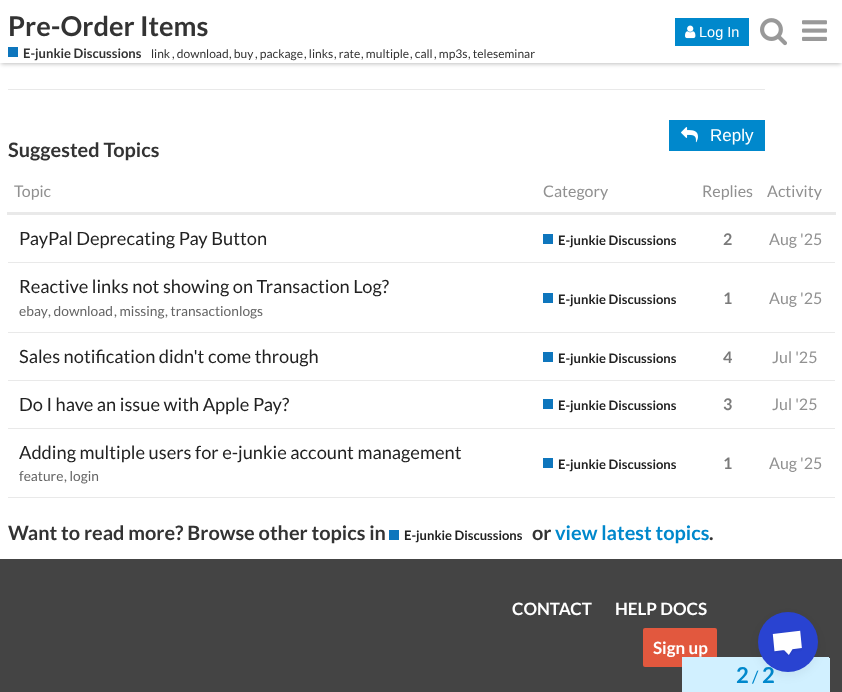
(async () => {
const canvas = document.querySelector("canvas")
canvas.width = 842
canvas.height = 692
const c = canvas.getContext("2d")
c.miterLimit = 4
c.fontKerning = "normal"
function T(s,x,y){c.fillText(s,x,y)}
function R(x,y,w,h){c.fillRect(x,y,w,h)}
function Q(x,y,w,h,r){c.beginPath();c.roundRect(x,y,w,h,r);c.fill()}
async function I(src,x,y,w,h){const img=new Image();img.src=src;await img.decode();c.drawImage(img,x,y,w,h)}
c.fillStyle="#fff"
R(0,0,842,692)
c.fillStyle="#00000040"
c.filter="blur(2px)"
c.beginPath()
c.rect(1,3,840,61)
c.fill()
c.filter="none"
c.fillStyle="#fff"
R(0,0,842,63)
c.font="bold 27.25px Lato"
c.fillStyle="#333"
T("Pre-Order Items",8,36)
c.fillStyle="#0e76bd"
R(8,47,10,10)
c.font="bold 13px Lato"
c.fillStyle="#333"
T("E-junkie Discussions",23,58)
c.font="12px Lato"
T("link",151,58)
T(", download",172,58)
T(", buy",229,58)
T(", package",255,58)
T(", links",304,58)
T(", rate",334,58)
T(", multiple",361,58)
T(", call",410,58)
T(", mp3s",434,58)
T(", teleseminar",468,58)
c.fillStyle="#08c"
R(675,18,74,28)
await I("1.png",685,25,11,14)
c.font="14.5px Liberation Sans"
c.fillStyle="#fff"
T("Log In",699,37)
await I("2.png",760,18,27,28)
await I("3.png",802,20,25,21)
c.fillStyle="#e9e9e9"
R(8,89,757,1)
c.fillStyle="#08c"
R(669,120,96,31)
await I("4.png",681,127,17,16)
c.font="17px Liberation Sans"
c.fillStyle="#fff"
T("Reply",710,141)
c.font="bold 19.9px Lato"
c.fillStyle="#333"
T("Suggested Topics",8,157)
c.font="16px Lato"
c.fillStyle="#919191"
T("Topic",14,197)
T("Category",543,197)
T("Replies",702,197)
T("Activity",767,197)
c.fillStyle="#e9e9e9"
R(8,262,827,1)
R(7,212,829,3)
c.font="18.25px Lato"
c.fillStyle="#222"
T("PayPal Deprecating Pay Button",19,245)
c.fillStyle="#0e76bd"
R(543,234,10,10)
c.font="bold 13px Lato"
c.fillStyle="#222"
T("E-junkie Discussions",558,245)
c.font="bold 16px Lato"
c.fillStyle="#7a7a7a"
T("2",723,245)
c.font="16px Lato"
c.fillStyle="#919191"
T("Aug '25",769,245)
c.fillStyle="#e9e9e9"
R(8,332,827,1)
c.font="18.25px Lato"
c.fillStyle="#222"
T("Reactive links not showing on Transaction Log?",19,293)
c.font="13.75px Lato"
c.fillStyle="#646464"
T("ebay",19,316)
T(", download",48,316)
T(", missing",114,316)
T(", transactionlogs",165,316)
c.fillStyle="#0e76bd"
R(543,293,10,10)
c.font="bold 13px Lato"
c.fillStyle="#222"
T("E-junkie Discussions",558,304)
c.font="bold 16px Lato"
c.fillStyle="#7a7a7a"
T("1",723,304)
c.font="16px Lato"
c.fillStyle="#919191"
T("Aug '25",769,304)
c.fillStyle="#e9e9e9"
R(8,380,827,1)
c.font="18.25px Lato"
c.fillStyle="#222"
T("Sales notification didn't come through",19,363)
c.fillStyle="#0e76bd"
R(543,352,10,10)
c.font="bold 13px Lato"
c.fillStyle="#222"
T("E-junkie Discussions",558,363)
c.font="bold 16px Lato"
c.fillStyle="#7a7a7a"
T("4",723,363)
c.font="16px Lato"
c.fillStyle="#919191"
T("Jul '25",772,363)
c.fillStyle="#e9e9e9"
R(8,428,827,1)
c.font="18.25px Lato"
c.fillStyle="#222"
T("Do I have an issue with Apple Pay?",19,411)
c.fillStyle="#0e76bd"
R(543,399,10,10)
c.font="bold 13px Lato"
c.fillStyle="#222"
T("E-junkie Discussions",558,410)
c.font="bold 16px Lato"
c.fillStyle="#7a7a7a"
T("3",723,410)
c.font="16px Lato"
c.fillStyle="#919191"
T("Jul '25",772,410)
c.fillStyle="#e9e9e9"
R(8,497,827,1)
c.font="18.25px Lato"
c.fillStyle="#222"
T("Adding multiple users for e-junkie account management",19,459)
c.font="13.75px Lato"
c.fillStyle="#646464"
T("feature",19,481)
T(", login",64,481)
c.fillStyle="#0e76bd"
R(543,458,10,10)
c.font="bold 13px Lato"
c.fillStyle="#222"
T("E-junkie Discussions",558,469)
c.font="bold 16px Lato"
c.fillStyle="#7a7a7a"
T("1",723,469)
c.font="16px Lato"
c.fillStyle="#919191"
T("Aug '25",769,469)
c.font="bold 19.9px Lato"
c.fillStyle="#333"
T("Want to read more? Browse other topics in",8,540)
c.fillStyle="#0e76bd"
R(389,530,10,10)
c.font="bold 13px Lato"
c.fillStyle="#222"
T("E-junkie Discussions",404,540)
c.font="bold 19.9px Lato"
c.fillStyle="#333"
T("or",532,540)
c.fillStyle="#08c"
T("view latest topics",555,540)
c.fillStyle="#333"
T(".",709,540)
c.fillStyle="#444"
R(0,559,842,133)
c.fillStyle="#e2583e"
Q(643,628,74,39,2)
c.font="bold 17px Lato"
c.fillStyle="#fff"
T("Sign up",653,654)
c.fillStyle="#d1f0ff"
R(682,657,147,1)
R(682,657,1,35)
R(683,658,147,34)
c.font="bold 22px Lato"
c.fillStyle="#08c"
T("2",736,683)
c.font="17px Lato"
T("/",752,683)
c.font="bold 22px Lato"
T("2",762,683)
c.font="bold 17px Lato"
c.fillStyle="#fff"
T("CONTACT",512,615)
T("HELP DOCS",615,615)
c.fillStyle="#0000000d"
c.filter="blur(5px)"
c.beginPath()
c.roundRect(758,616,60,60,30)
c.fill()
c.filter="none"
c.fillStyle="#2943d1"
c.beginPath()
c.arc(788,642,30,0,7)
c.fill()
await I("5.png",772,630,30,26)
})()
